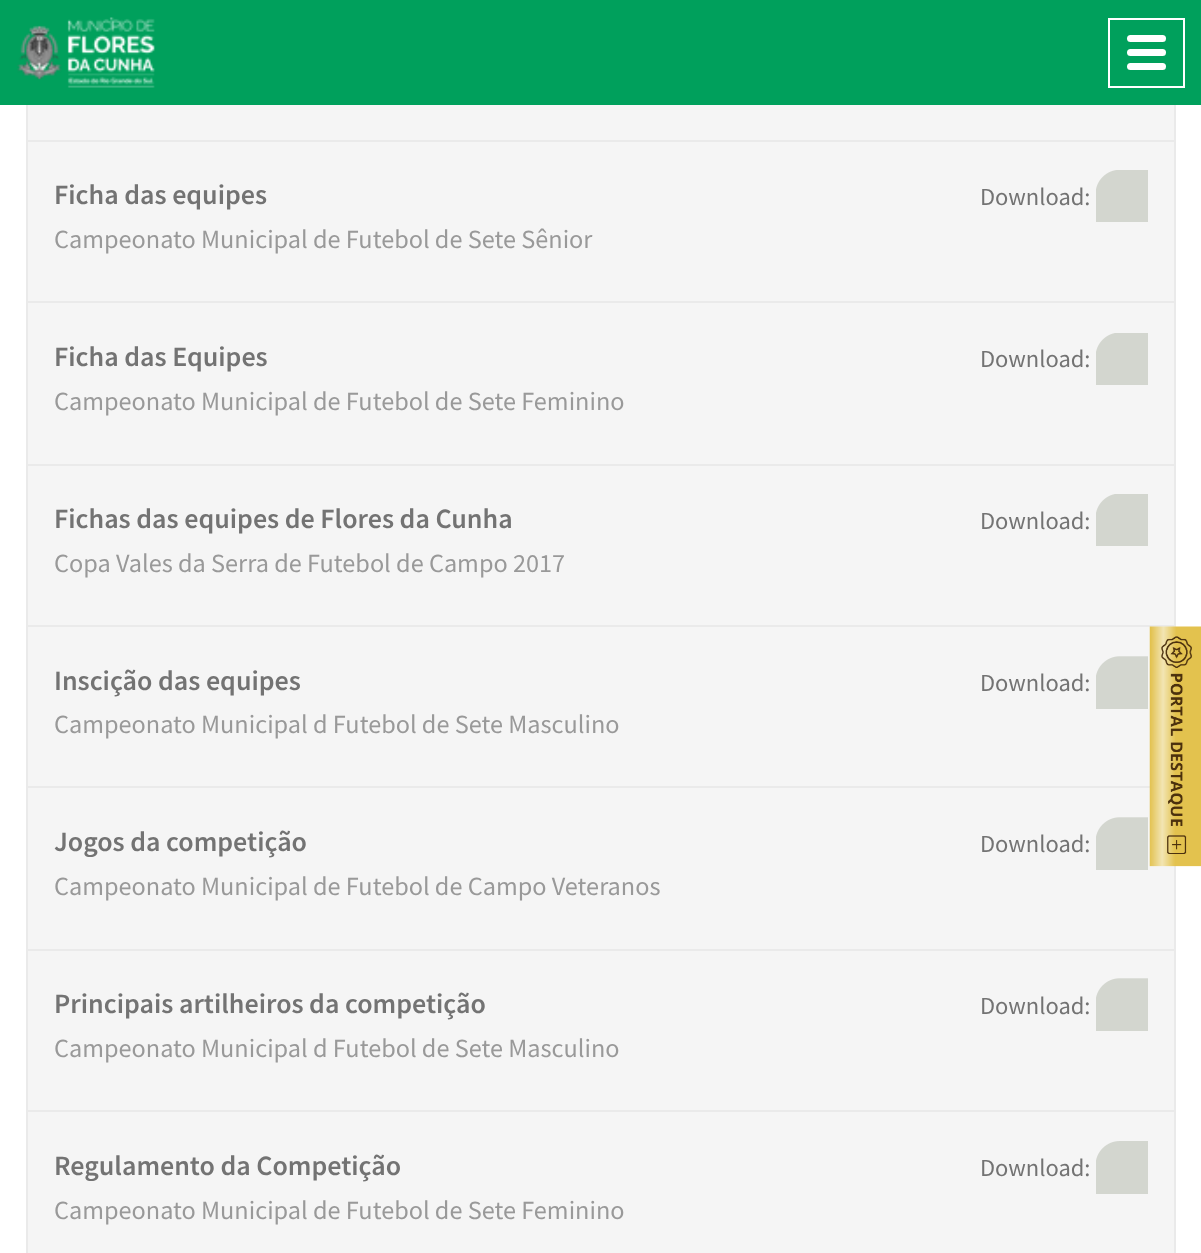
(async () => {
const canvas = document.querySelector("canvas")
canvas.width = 1201
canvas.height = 1253
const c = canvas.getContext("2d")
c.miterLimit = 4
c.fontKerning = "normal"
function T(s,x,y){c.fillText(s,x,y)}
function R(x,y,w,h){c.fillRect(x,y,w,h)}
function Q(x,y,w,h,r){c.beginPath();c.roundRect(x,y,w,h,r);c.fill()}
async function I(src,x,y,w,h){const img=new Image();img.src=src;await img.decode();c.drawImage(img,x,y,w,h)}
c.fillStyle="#fff"
R(0,0,1201,1253)
c.fillStyle="#f5f5f5"
R(28,105,1146,1148)
c.strokeStyle="#eaeaea"
c.lineWidth=2
c.strokeRect(27,-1,1148,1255)
c.fillStyle="#00a05c"
R(0,0,1201,105)
await I("1.png",17,17,138,71)
c.strokeStyle="#fff"
c.strokeRect(1109,19,75,68)
c.fillStyle="#fff"
Q(1127,35,39,7,3.5)
Q(1127,49,39,7,3.5)
Q(1127,63,39,7,3.5)
c.fillStyle="#eaeaea"
R(28,625,1146,2)
R(28,786,1122,2)
await I("2.png",1149,626,52,241)
R(28,140,1146,2)
c.font="600 28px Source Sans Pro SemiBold"
c.fillStyle="#737373"
T("Ficha das equipes",54,204)
c.font="26.25px Source Sans Pro"
c.fillStyle="#999"
T("Campeonato Municipal de Futebol de Sete Sênior",54,248)
c.font="24.5px Source Sans Pro"
c.fillStyle="#737373"
T("Download:",980,205)
await I("3.png",1096,170,52,52)
c.fillStyle="#eaeaea"
R(28,301,1146,2)
c.font="600 28px Source Sans Pro SemiBold"
c.fillStyle="#737373"
T("Ficha das Equipes",54,366)
c.font="26.25px Source Sans Pro"
c.fillStyle="#999"
T("Campeonato Municipal de Futebol de Sete Feminino",54,410)
c.font="24.5px Source Sans Pro"
c.fillStyle="#737373"
T("Download:",980,367)
await I("4.png",1096,333,52,52)
c.fillStyle="#eaeaea"
R(28,464,1146,2)
c.font="600 28px Source Sans Pro SemiBold"
c.fillStyle="#737373"
T("Fichas das equipes de Flores da Cunha",54,528)
c.font="26.25px Source Sans Pro"
c.fillStyle="#999"
T("Copa Vales da Serra de Futebol de Campo 2017",54,572)
c.font="24.5px Source Sans Pro"
c.fillStyle="#737373"
T("Download:",980,529)
await I("4.png",1096,494,52,52)
c.font="600 28px Source Sans Pro SemiBold"
T("Inscição das equipes",54,690)
c.font="26.25px Source Sans Pro"
c.fillStyle="#999"
T("Campeonato Municipal d Futebol de Sete Masculino",54,733)
c.font="24.5px Source Sans Pro"
c.fillStyle="#737373"
T("Download:",980,691)
await I("5.png",1096,656,52,53)
c.font="600 28px Source Sans Pro SemiBold"
T("Jogos da competição",54,851)
c.font="26.25px Source Sans Pro"
c.fillStyle="#999"
T("Campeonato Municipal de Futebol de Campo Veteranos",54,895)
c.font="24.5px Source Sans Pro"
c.fillStyle="#737373"
T("Download:",980,852)
await I("5.png",1096,817,52,53)
c.fillStyle="#eaeaea"
R(28,949,1146,2)
c.font="600 28px Source Sans Pro SemiBold"
c.fillStyle="#737373"
T("Principais artilheiros da competição",54,1013)
c.font="26.25px Source Sans Pro"
c.fillStyle="#999"
T("Campeonato Municipal d Futebol de Sete Masculino",54,1057)
c.font="24.5px Source Sans Pro"
c.fillStyle="#737373"
T("Download:",980,1014)
await I("5.png",1096,978,52,53)
c.fillStyle="#eaeaea"
R(28,1110,1146,2)
c.font="600 28px Source Sans Pro SemiBold"
c.fillStyle="#737373"
T("Regulamento da Competição",54,1175)
c.font="26.25px Source Sans Pro"
c.fillStyle="#999"
T("Campeonato Municipal de Futebol de Sete Feminino",54,1219)
c.font="24.5px Source Sans Pro"
c.fillStyle="#737373"
T("Download:",980,1176)
await I("6.png",1096,1141,52,53)
})()
